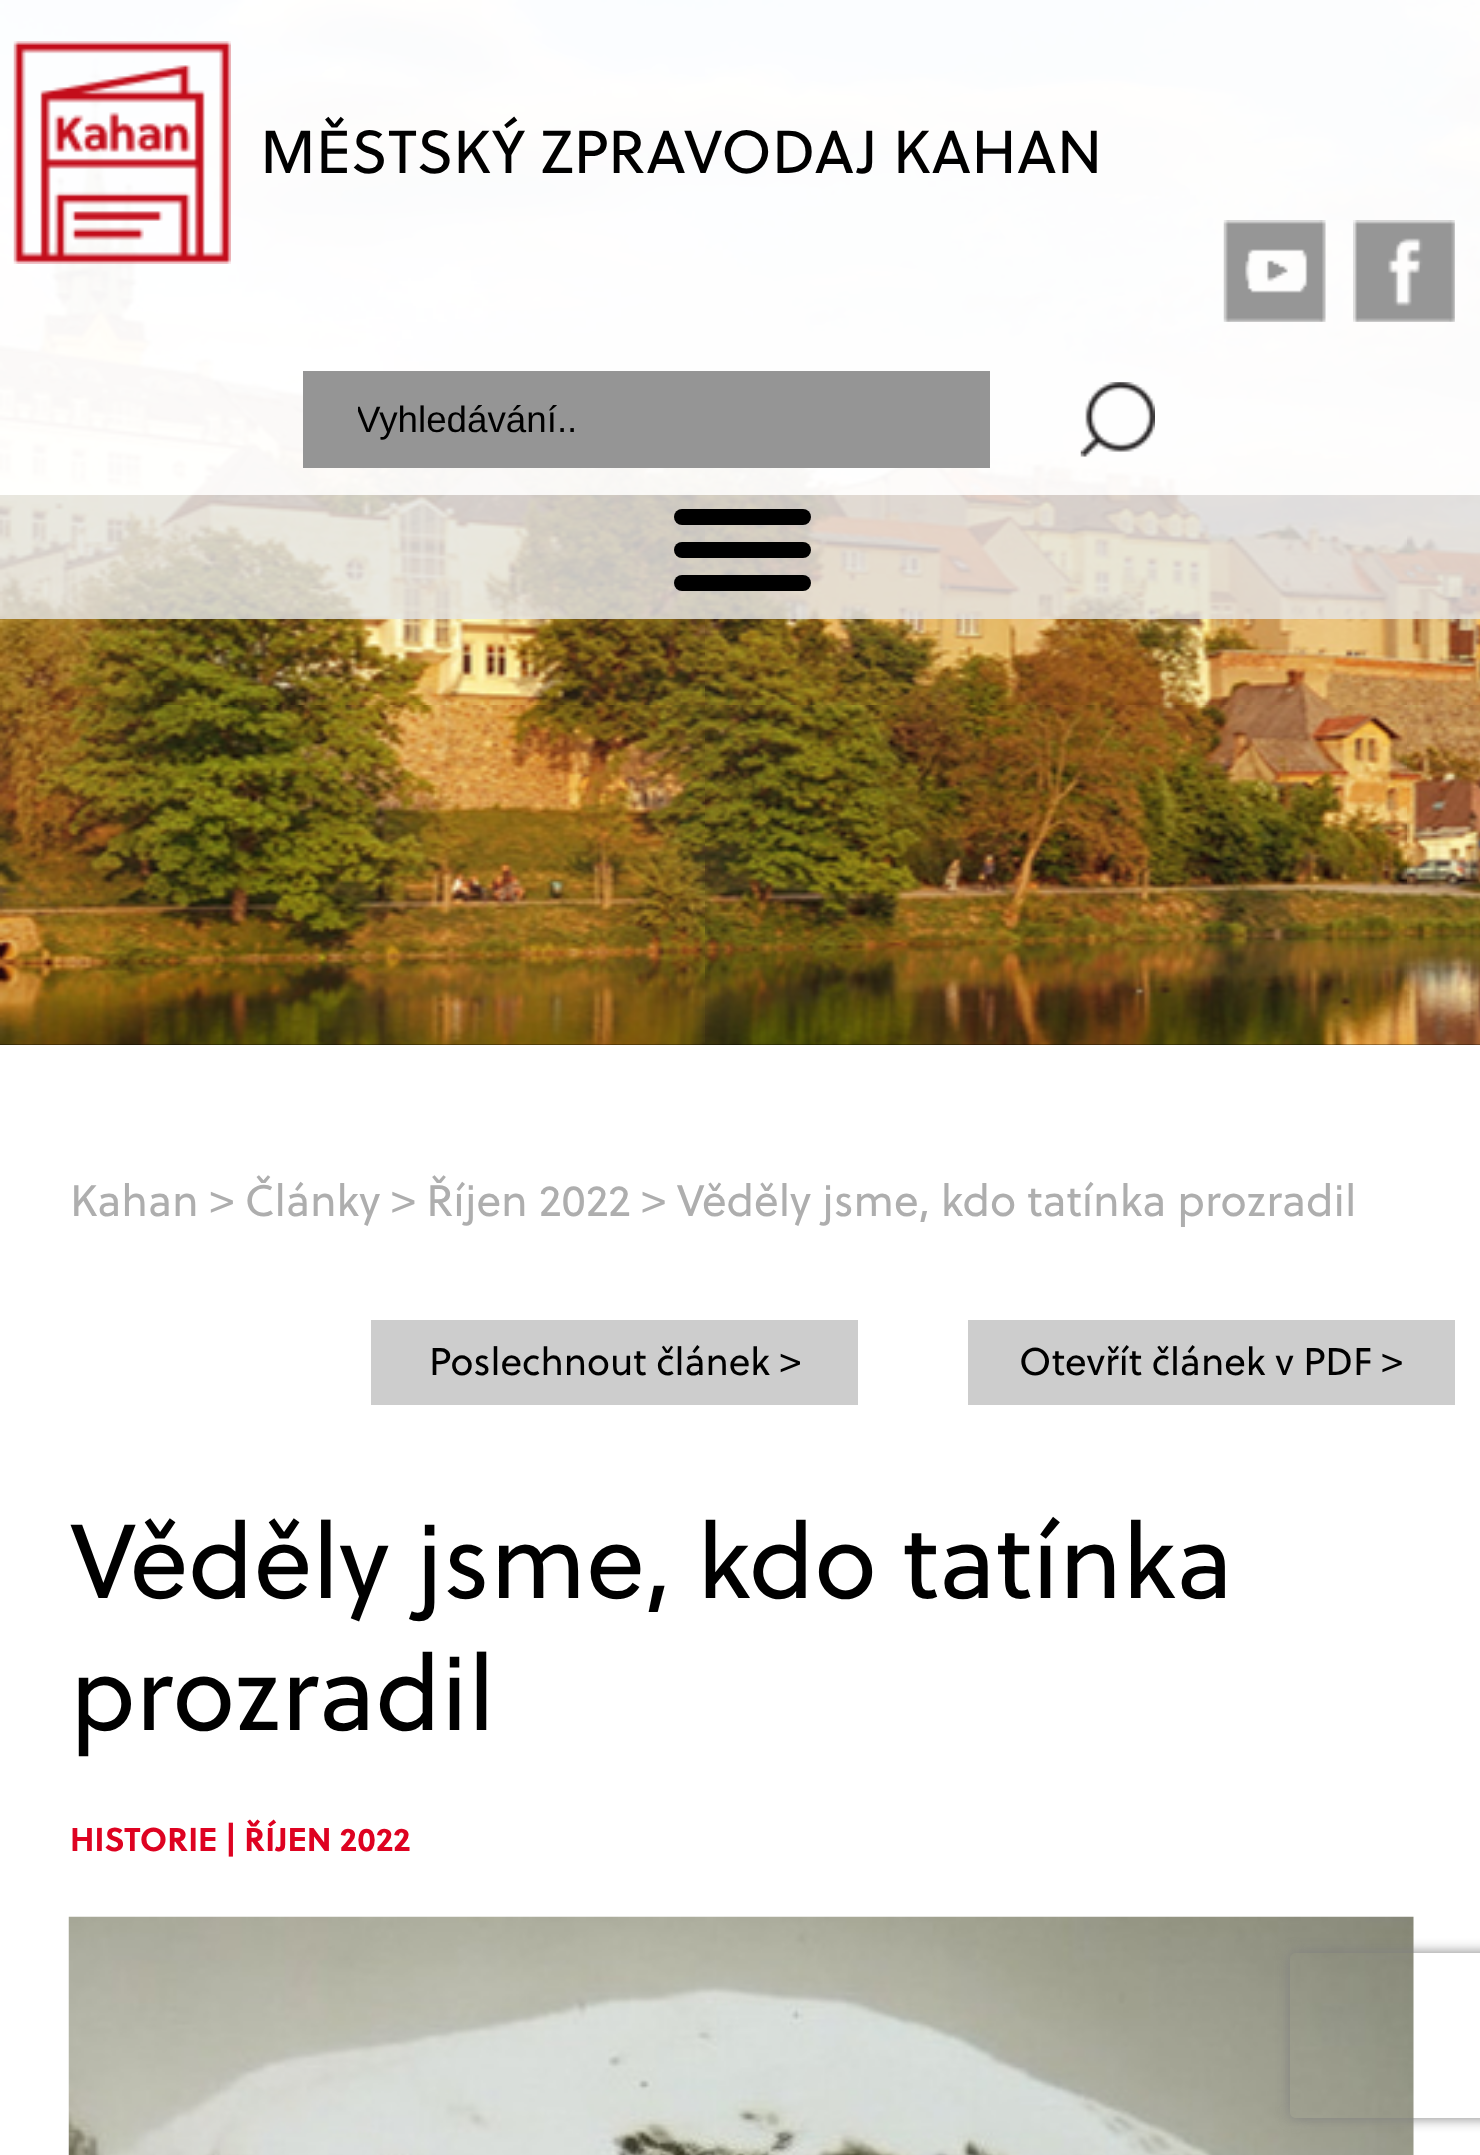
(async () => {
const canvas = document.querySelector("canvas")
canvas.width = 1480
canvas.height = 2155
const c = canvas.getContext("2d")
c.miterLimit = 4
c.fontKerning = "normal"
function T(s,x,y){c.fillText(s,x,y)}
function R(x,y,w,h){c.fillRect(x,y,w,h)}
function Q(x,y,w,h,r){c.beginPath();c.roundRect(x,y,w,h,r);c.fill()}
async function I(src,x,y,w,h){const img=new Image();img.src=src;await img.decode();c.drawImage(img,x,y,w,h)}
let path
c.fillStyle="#fff"
R(0,0,1480,2155)
c.fillStyle="#000"
R(0,1044,1480,1)
await I("1.png",0,0,1480,1045)
c.fillStyle="#fffffff5"
R(0,0,1480,495)
await I("2.png",13,41,218,223)
c.font="60.5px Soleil"
c.fillStyle="#000"
T("MĚSTSKÝ ZPRAVODAJ KAHAN",260,173)
c.fillStyle="#959595"
R(303,371,687,97)
c.save()
c.beginPath()
c.rect(358,399,577,41)
c.clip()
c.font="36.75px Liberation Sans"
c.fillStyle="#000"
T("Vyhledávání..",356,432)
c.restore()
await I("3.png",1080,382,75,75)
await I("4.png",1223,220,103,102)
await I("5.png",1353,220,102,102)
c.fillStyle="#e5e5e5d4"
R(0,495,1480,124)
c.fillStyle="#000"
Q(674,509,137,16,8)
Q(674,542,137,16,8)
Q(674,575,137,16,8)
c.font="44px Soleil"
c.fillStyle="#aeaeae"
T("Kahan > Články > Říjen 2022 > Věděly jsme, kdo tatínka prozradil",70,1216)
c.fillStyle="#cdcdcd"
R(371,1320,487,85)
c.font="38.5px Soleil"
c.fillStyle="#000"
T("Poslechnout článek >",429,1375)
c.fillStyle="#cdcdcd"
R(968,1320,487,85)
c.fillStyle="#000"
T("Otevřít článek v PDF >",1019,1375)
c.font="104.5px Soleil"
T("Věděly jsme, kdo tatínka",70,1598)
T("prozradil",70,1730)
c.font="bold 33px Soleil"
c.fillStyle="#de0221"
T("HISTORIE | ŘÍJEN 2022",70,1851)
await I("6.png",68,1916,1346,239)
c.save()
path = new Path2D("M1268 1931h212v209h-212zm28 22h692c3.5 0 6 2.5 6 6v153c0 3.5-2.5 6-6 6h-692c-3.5 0-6-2.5-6-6v-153c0-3.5 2.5-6 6-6z")
c.clip(path,"evenodd")
c.fillStyle="#808080"
c.filter="blur(7px)"
c.beginPath()
c.roundRect(1290,1953,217,165,6)
c.fill()
c.filter="none"
c.restore()
})()
